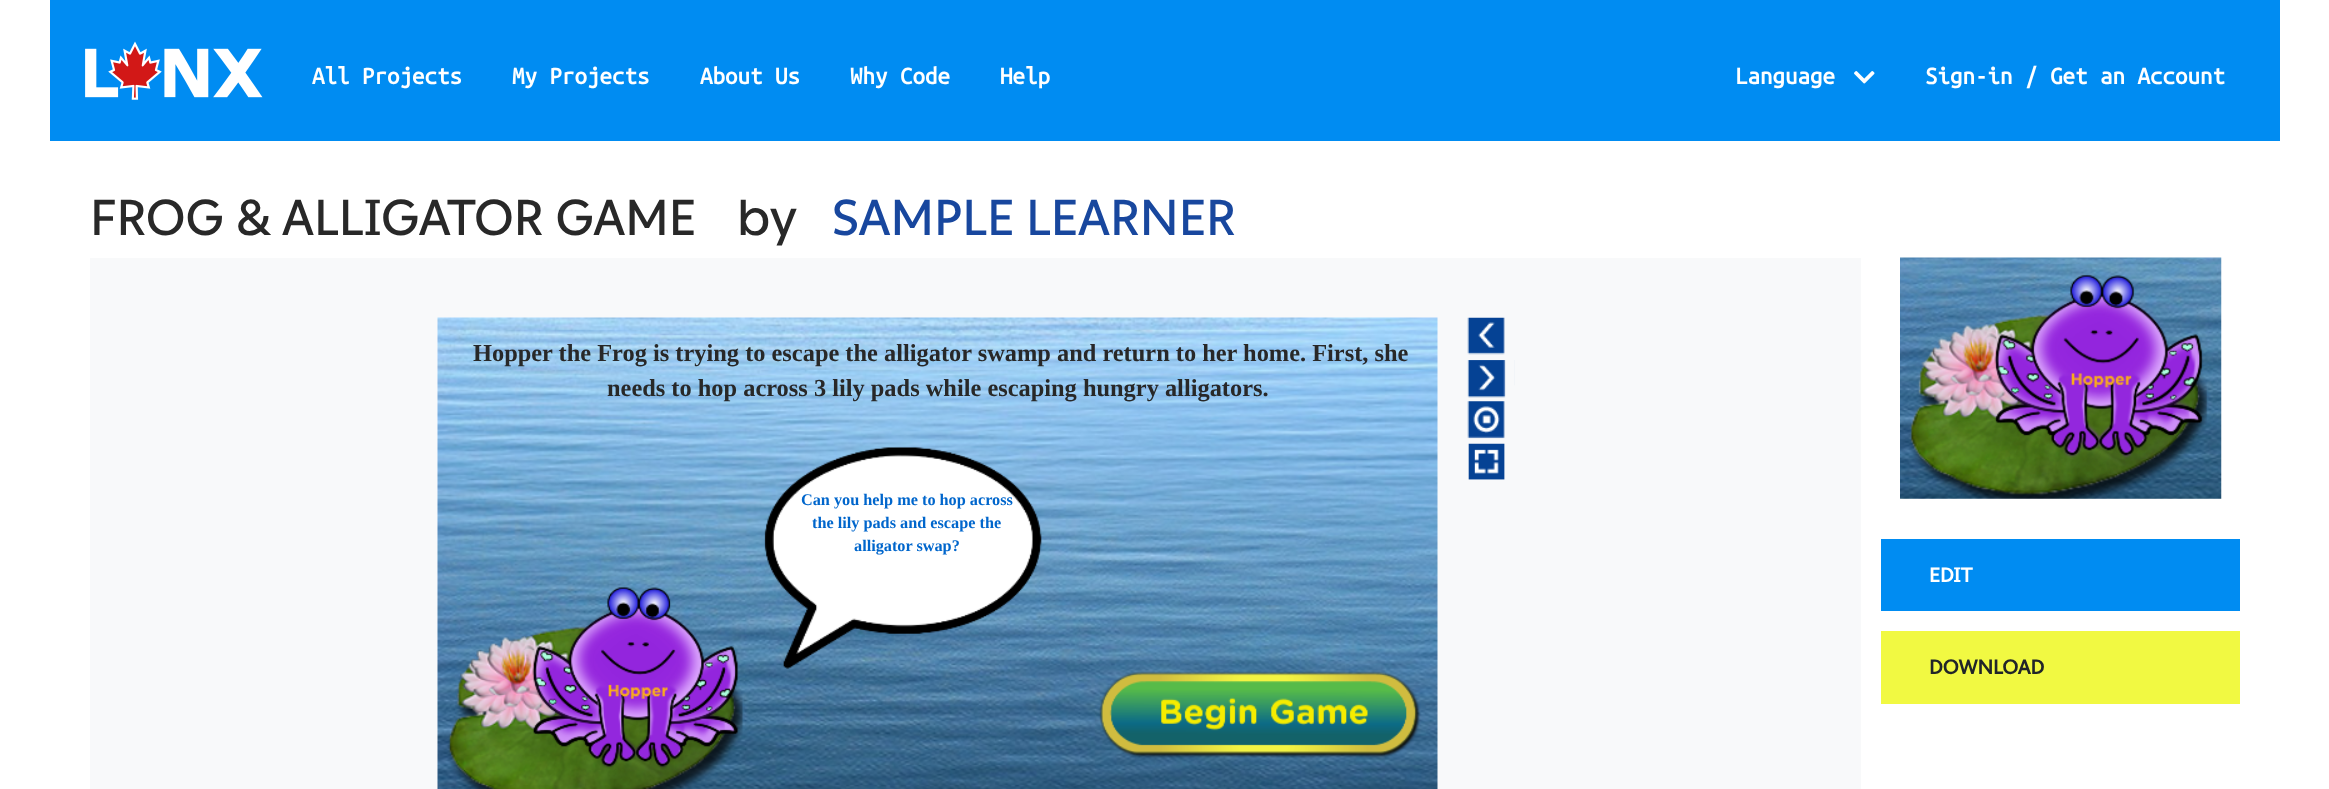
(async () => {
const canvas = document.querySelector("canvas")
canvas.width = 2329
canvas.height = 789
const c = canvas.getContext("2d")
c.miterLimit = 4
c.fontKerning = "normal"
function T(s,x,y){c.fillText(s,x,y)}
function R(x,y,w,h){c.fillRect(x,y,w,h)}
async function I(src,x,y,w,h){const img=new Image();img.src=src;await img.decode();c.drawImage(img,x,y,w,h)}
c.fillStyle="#fff"
R(0,0,2329,789)
c.fillStyle="#008cf2"
R(50,0,2230,141)
await I("1.png",85,41,178,59)
c.font="bold 25px Ubuntu Mono"
c.fillStyle="#fff"
T("All Projects",312,84)
T("My Projects",512,84)
T("About Us",700,84)
T("Why Code",850,84)
T("Help",1000,84)
T("Language",1735,84)
await I("2.png",1854,71,21,13)
T("Sign-in / Get an Account",1925,84)
c.font="500 50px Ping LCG"
c.fillStyle="#282828"
T("FROG & ALLIGATOR GAME",90,235)
T("by",737,235)
c.fillStyle="#18479e"
T("SAMPLE LEARNER",832,235)
c.fillStyle="#f8f9fa"
R(90,258,1771,531)
await I("3.png",437,317,1001,472)
c.font="bold 24.4px Liberation Serif"
c.fillStyle="#282828"
T("Hopper the Frog is trying to escape the alligator swamp and return to her home. First, she",473,361)
T("needs to hop across 3 lily pads while escaping hungry alligators.",607,396)
c.font="bold 16.25px Liberation Serif"
c.fillStyle="#06c"
T("Can you help me to hop across",801,505)
T("the lily pads and escape the",812,528)
T("alligator swap?",854,551)
await I("4.png",1467,317,38,38)
await I("5.png",1467,360,48,38)
await I("6.png",1467,401,38,38)
await I("7.png",1468,443,37,37)
await I("8.png",1900,257,322,242)
c.fillStyle="#008cf2"
R(1881,539,359,72)
c.font="bold 20px Ping LCG"
c.fillStyle="#fff"
T("EDIT",1929,582)
c.fillStyle="#f1f942"
R(1881,631,359,73)
c.fillStyle="#212529"
T("DOWNLOAD",1929,674)
})()
